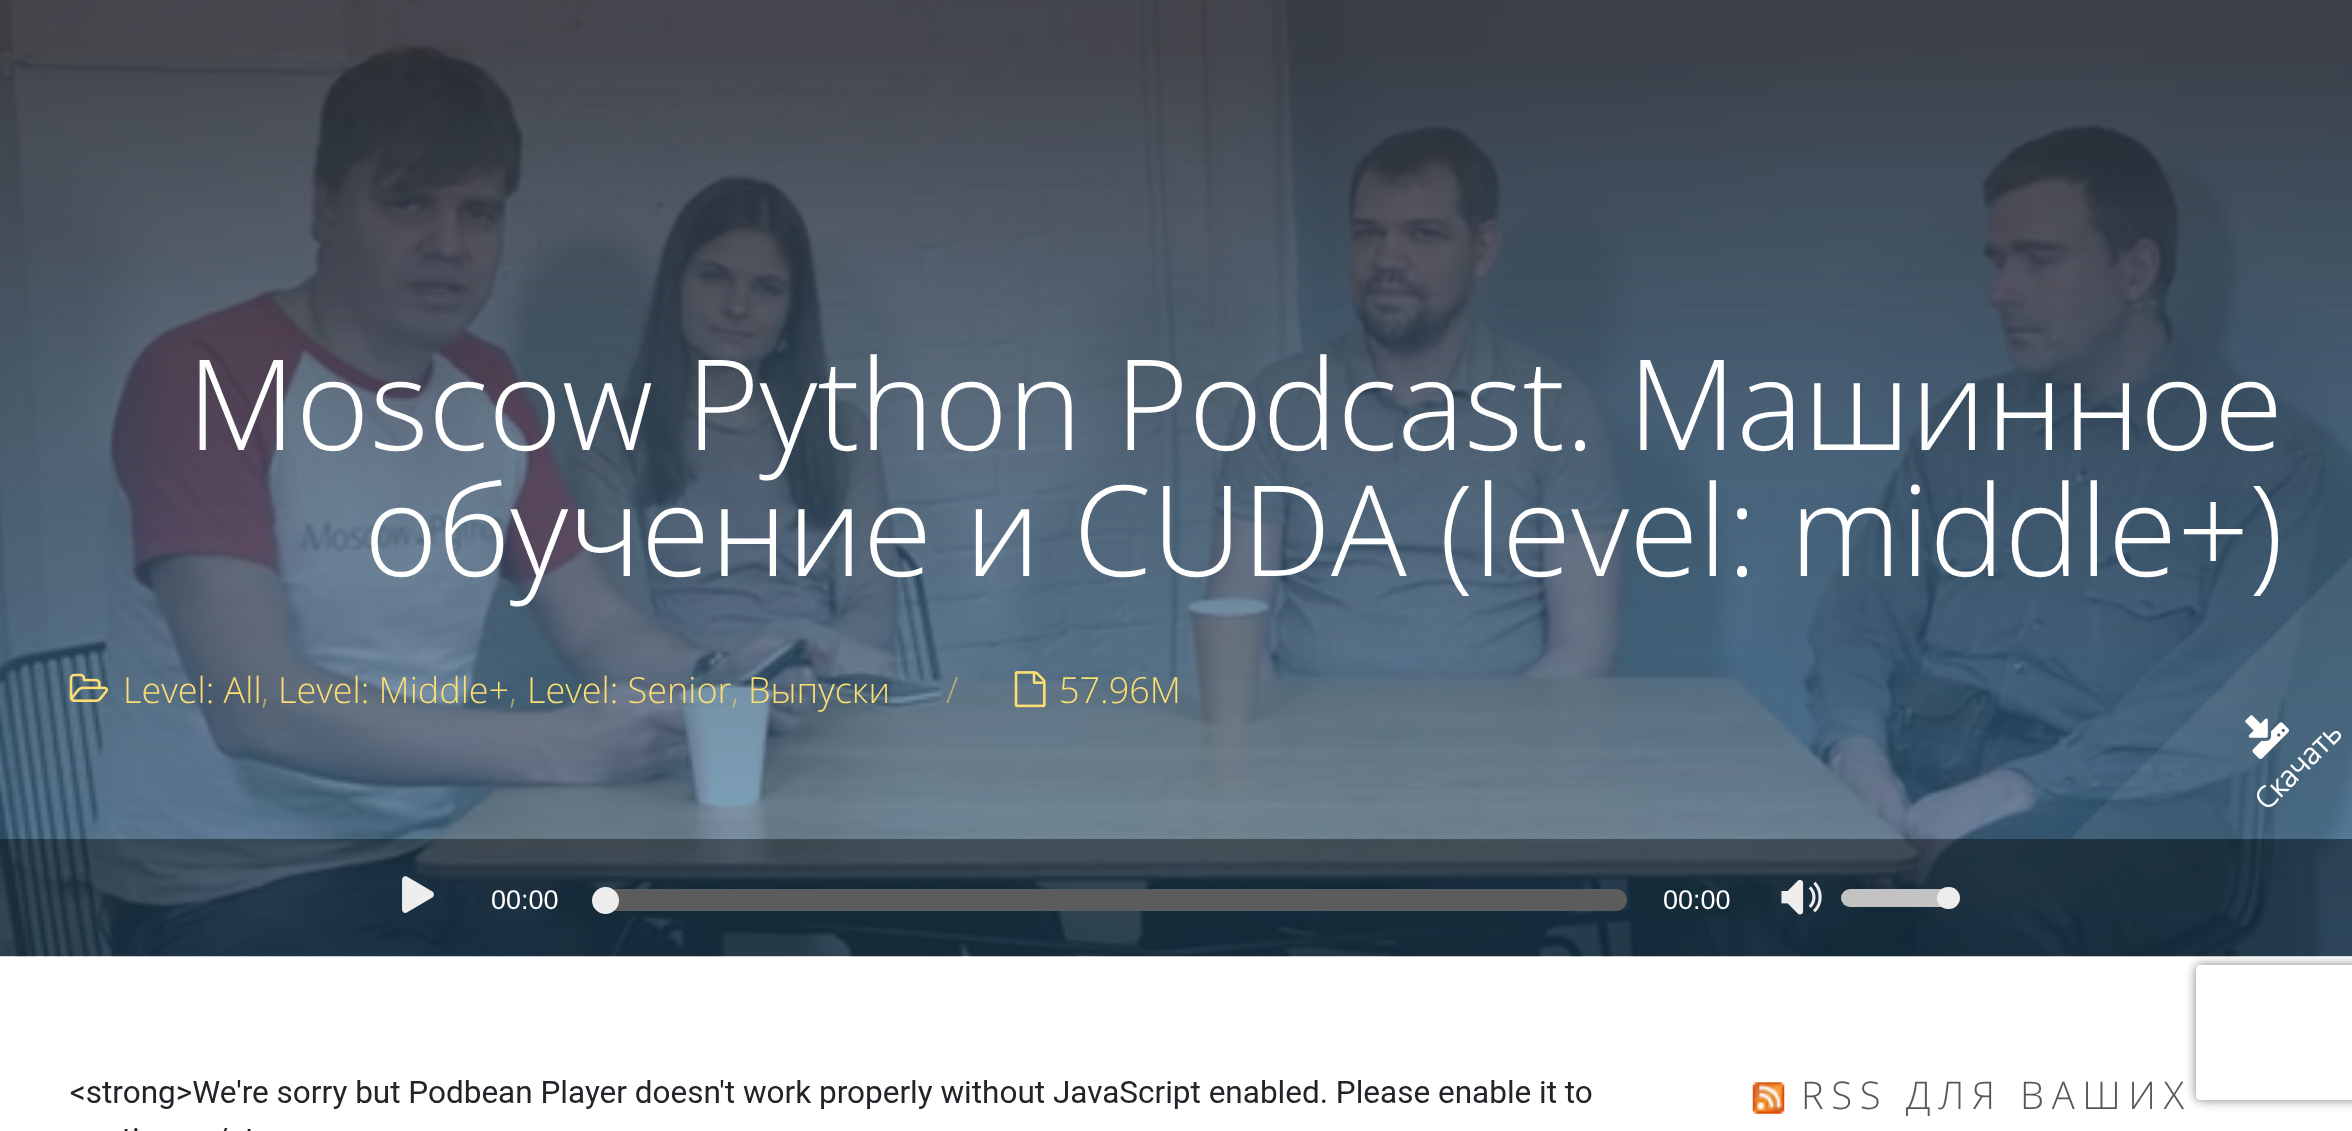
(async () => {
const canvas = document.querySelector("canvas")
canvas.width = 2352
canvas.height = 1131
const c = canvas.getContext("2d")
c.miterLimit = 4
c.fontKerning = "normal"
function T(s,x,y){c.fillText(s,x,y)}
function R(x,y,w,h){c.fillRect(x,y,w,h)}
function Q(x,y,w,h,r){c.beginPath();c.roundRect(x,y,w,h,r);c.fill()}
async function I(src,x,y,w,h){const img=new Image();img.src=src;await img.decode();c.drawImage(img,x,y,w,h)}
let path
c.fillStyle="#fff"
R(0,0,2352,1131)
await I("1.png",0,0,2352,957)
c.font="300 126px Open Sans"
T("Moscow Python Podcast. Машинное",187,450)
T("обучение и CUDA (level: middle+)",364,576)
await I("2.png",69,673,40,29)
c.font="300 36px Open Sans"
c.fillStyle="#fcde72"
T("Level: All",123,703)
c.fillStyle="#b1a673"
T(",",261,703)
c.fillStyle="#fcde72"
T("Level: Middle+",278,703)
c.fillStyle="#a8a472"
T(",",509,703)
c.fillStyle="#fcde72"
T("Level: Senior",527,703)
c.fillStyle="#bfbd8a"
T(",",731,703)
c.fillStyle="#fcde72"
T("Выпуски",748,703)
c.fillStyle="#b5af7b"
T("/",946,703)
await I("3.png",1014,671,32,37)
c.fillStyle="#fcde72"
T("57.96M",1059,703)
c.save()
c.beginPath()
c.rect(2072,558,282,281)
c.clip()
c.fillStyle="#ffffff14"
path = new Path2D("M2072 837l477-477l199 199l-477 477z")
c.fill(path)
c.restore()
await I("4.png",2245,715,45,44)
c.font="bold 29px Open Sans"
c.fillStyle="#fff"
c.save()
c.translate(2267,812)
c.rotate(-45 * Math.PI / 180)
c.fillText("Скачать",0,0)
c.restore()
c.fillStyle="#00000066"
R(0,839,2352,117)
await I("5.png",402,876,32,37)
c.font="27px Liberation Sans"
c.fillStyle="#fff"
T("00:00",491,909)
c.fillStyle="#5c5c5c"
Q(605,889,1022,22,11)
c.fillStyle="#ededed"
c.beginPath()
c.arc(605.5,900.5,8,0,7)
c.fill()
c.strokeStyle="#ededed"
c.lineWidth=11
c.stroke()
c.fillStyle="#fff"
T("00:00",1663,909)
await I("6.png",1781,880,41,35)
c.fillStyle="#c2c2c2"
Q(1841,889,112,18,9)
c.fillStyle="#ededed"
c.beginPath()
c.roundRect(1940.5,890.5,16,15,7.5)
c.fill()
c.lineWidth=7
c.stroke()
await I("7.png",70,1080,1522,51)
await I("8.png",1752,1082,33,32)
c.letterSpacing="7.6px"
c.font="300 38.25px Open Sans"
c.fillStyle="#54595f"
T("RSS ДЛЯ ВАШИХ",1801,1109)
c.save()
path = new Path2D("M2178 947h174v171h-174zm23 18h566c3 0 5 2 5 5v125c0 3-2 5-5 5h-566c-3 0-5-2-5-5v-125c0-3 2-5 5-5z")
c.clip(path,"evenodd")
c.fillStyle="#808080"
c.filter="blur(5.5px)"
c.beginPath()
c.roundRect(2196,965,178,135,5)
c.fill()
c.filter="none"
c.restore()
})()
